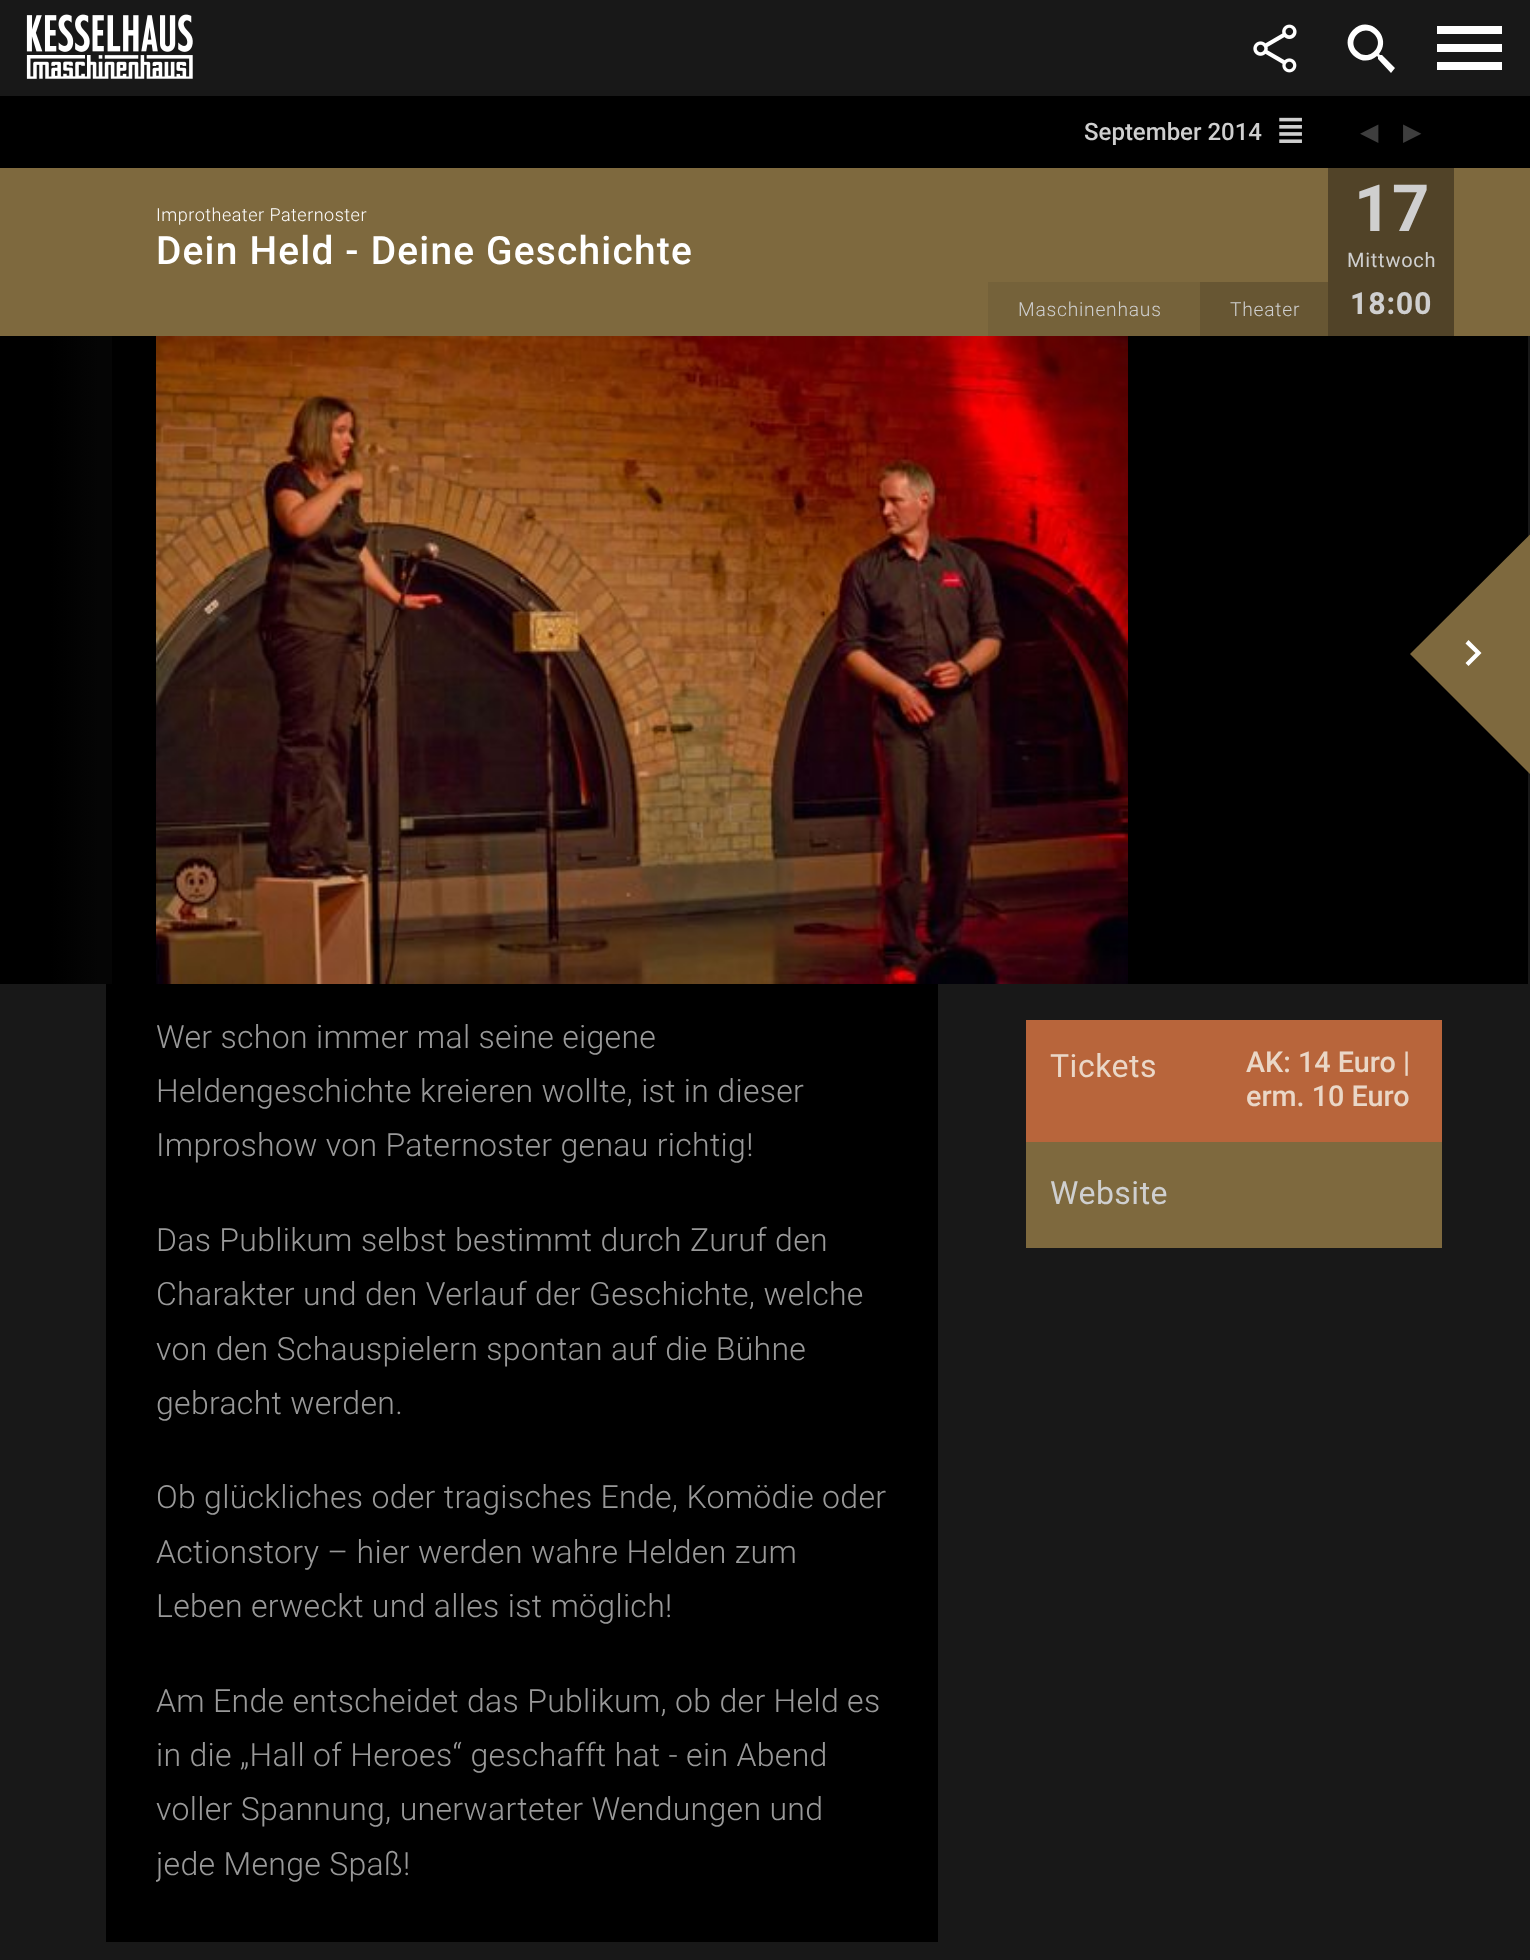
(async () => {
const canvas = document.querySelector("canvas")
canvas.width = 1530
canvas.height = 1960
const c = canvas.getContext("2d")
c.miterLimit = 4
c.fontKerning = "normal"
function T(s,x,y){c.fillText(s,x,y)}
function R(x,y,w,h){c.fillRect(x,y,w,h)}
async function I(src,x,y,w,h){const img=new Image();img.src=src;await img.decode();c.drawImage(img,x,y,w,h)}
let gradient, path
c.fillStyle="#181818"
R(0,0,1530,1960)
await I("1.png",26,14,167,65)
await I("2.png",1253,24,44,49)
c.fillStyle="#fff"
path = new Path2D("M1357 51c11 12 29-5 17-17c-11-11-28 6-17 17zm25 4l13 13l-4 5l-13-14v-2l-1-1c-17 15-40-10-24-26c16-16 40 7 26 24l1 1z")
c.fill(path)
path = new Path2D("M1437 70h65v-8h-65zm0-18h65v-8h-65zm0-26v8h65v-8z")
c.fill(path)
c.fillStyle="#000"
R(0,96,1530,72)
c.font="500 24px Roboto"
c.fillStyle="#cfcfcf"
T("September 2014",1084,140)
await I("3.png",1279,117,23,26)
c.font="24px DejaVu Sans"
c.fillStyle="#3e3e3e"
T("◀︎",1360,140)
T("▶︎",1403,140)
c.fillStyle="#7e693e"
R(0,168,1530,168)
c.letterSpacing="0.5px"
c.font="300 18px Roboto"
c.fillStyle="#fff"
T("Improtheater Paternoster",156,221)
c.letterSpacing="1.2px"
c.font="500 38.9px Roboto"
T("Dein Held - Deine Geschichte",156,264)
c.fillStyle="#514328"
R(1328,168,126,168)
c.letterSpacing="0.75px"
c.font="bold 65px Roboto"
c.fillStyle="#cfcfcf"
T("17",1354,231)
c.font="20px Roboto"
T("Mittwoch",1347,267)
c.font="bold 30.5px Roboto"
T("18:00",1350,314)
c.fillStyle="#75623a"
R(988,282,212,54)
c.font="300 19.25px Roboto"
c.fillStyle="#cfcfcf"
T("Maschinenhaus",1018,316)
c.fillStyle="#675633"
R(1200,282,128,54)
c.fillStyle="#cfcfcf"
T("Theater",1230,316)
gradient = c.createLinearGradient(112,392,0,392)
gradient.addColorStop(.12,"#050505")
gradient.addColorStop(.55,"#000")
c.fillStyle = gradient
R(0,336,112,648)
gradient = c.createLinearGradient(224,392,112,392)
gradient.addColorStop(.12,"#050505")
gradient.addColorStop(.55,"#000")
c.fillStyle = gradient
R(112,336,44,648)
await I("4.png",156,336,972,648)
c.fillStyle="#000"
R(1128,336,400,648)
c.fillStyle="#7e693e"
path = new Path2D("M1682 383l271 271l-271 272l-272-272z")
c.fill(path)
c.fillStyle="#fff"
path = new Path2D("M1468.5 640l13 13l-13 13l-3-3l10-10l-10-9.5z")
c.fill(path)
c.fillStyle="#000"
R(106,984,832,958)
c.letterSpacing="0.3px"
c.font="300 32px Roboto"
c.fillStyle="#999"
T("Wer schon immer mal seine eigene",156,1048)
T("Heldengeschichte kreieren wollte, ist in dieser",156,1102)
T("Improshow von Paternoster genau richtig!",156,1156)
T("Das Publikum selbst bestimmt durch Zuruf den",156,1251)
T("Charakter und den Verlauf der Geschichte, welche",156,1305)
T("von den Schauspielern spontan auf die Bühne",156,1360)
T("gebracht werden.",156,1414)
T("Ob glückliches oder tragisches Ende, Komödie oder",156,1508)
T("Actionstory – hier werden wahre Helden zum",156,1563)
T("Leben erweckt und alles ist möglich!",156,1617)
T("Am Ende entscheidet das Publikum, ob der Held es",156,1712)
T("in die „Hall of Heroes“ geschafft hat - ein Abend",156,1766)
T("voller Spannung, unerwarteter Wendungen und",156,1820)
c.save()
c.beginPath()
c.rect(156,1010,732,922)
c.clip()
T("jede Menge Spaß!",156,1875)
c.restore()
c.fillStyle="#b8653b"
R(1026,1020,416,122)
c.letterSpacing="0.5px"
c.font="32px Roboto"
c.fillStyle="#ead7c7"
T("Tickets",1050,1077)
c.letterSpacing="0px"
c.font="500 28.75px Roboto"
T("AK: 14 Euro |",1246,1072)
T("erm. 10 Euro",1246,1106)
c.fillStyle="#7e693e"
R(1026,1142,416,106)
c.letterSpacing="0.5px"
c.font="32px Roboto"
c.fillStyle="#cfcfcf"
T("Website",1050,1204)
})()
